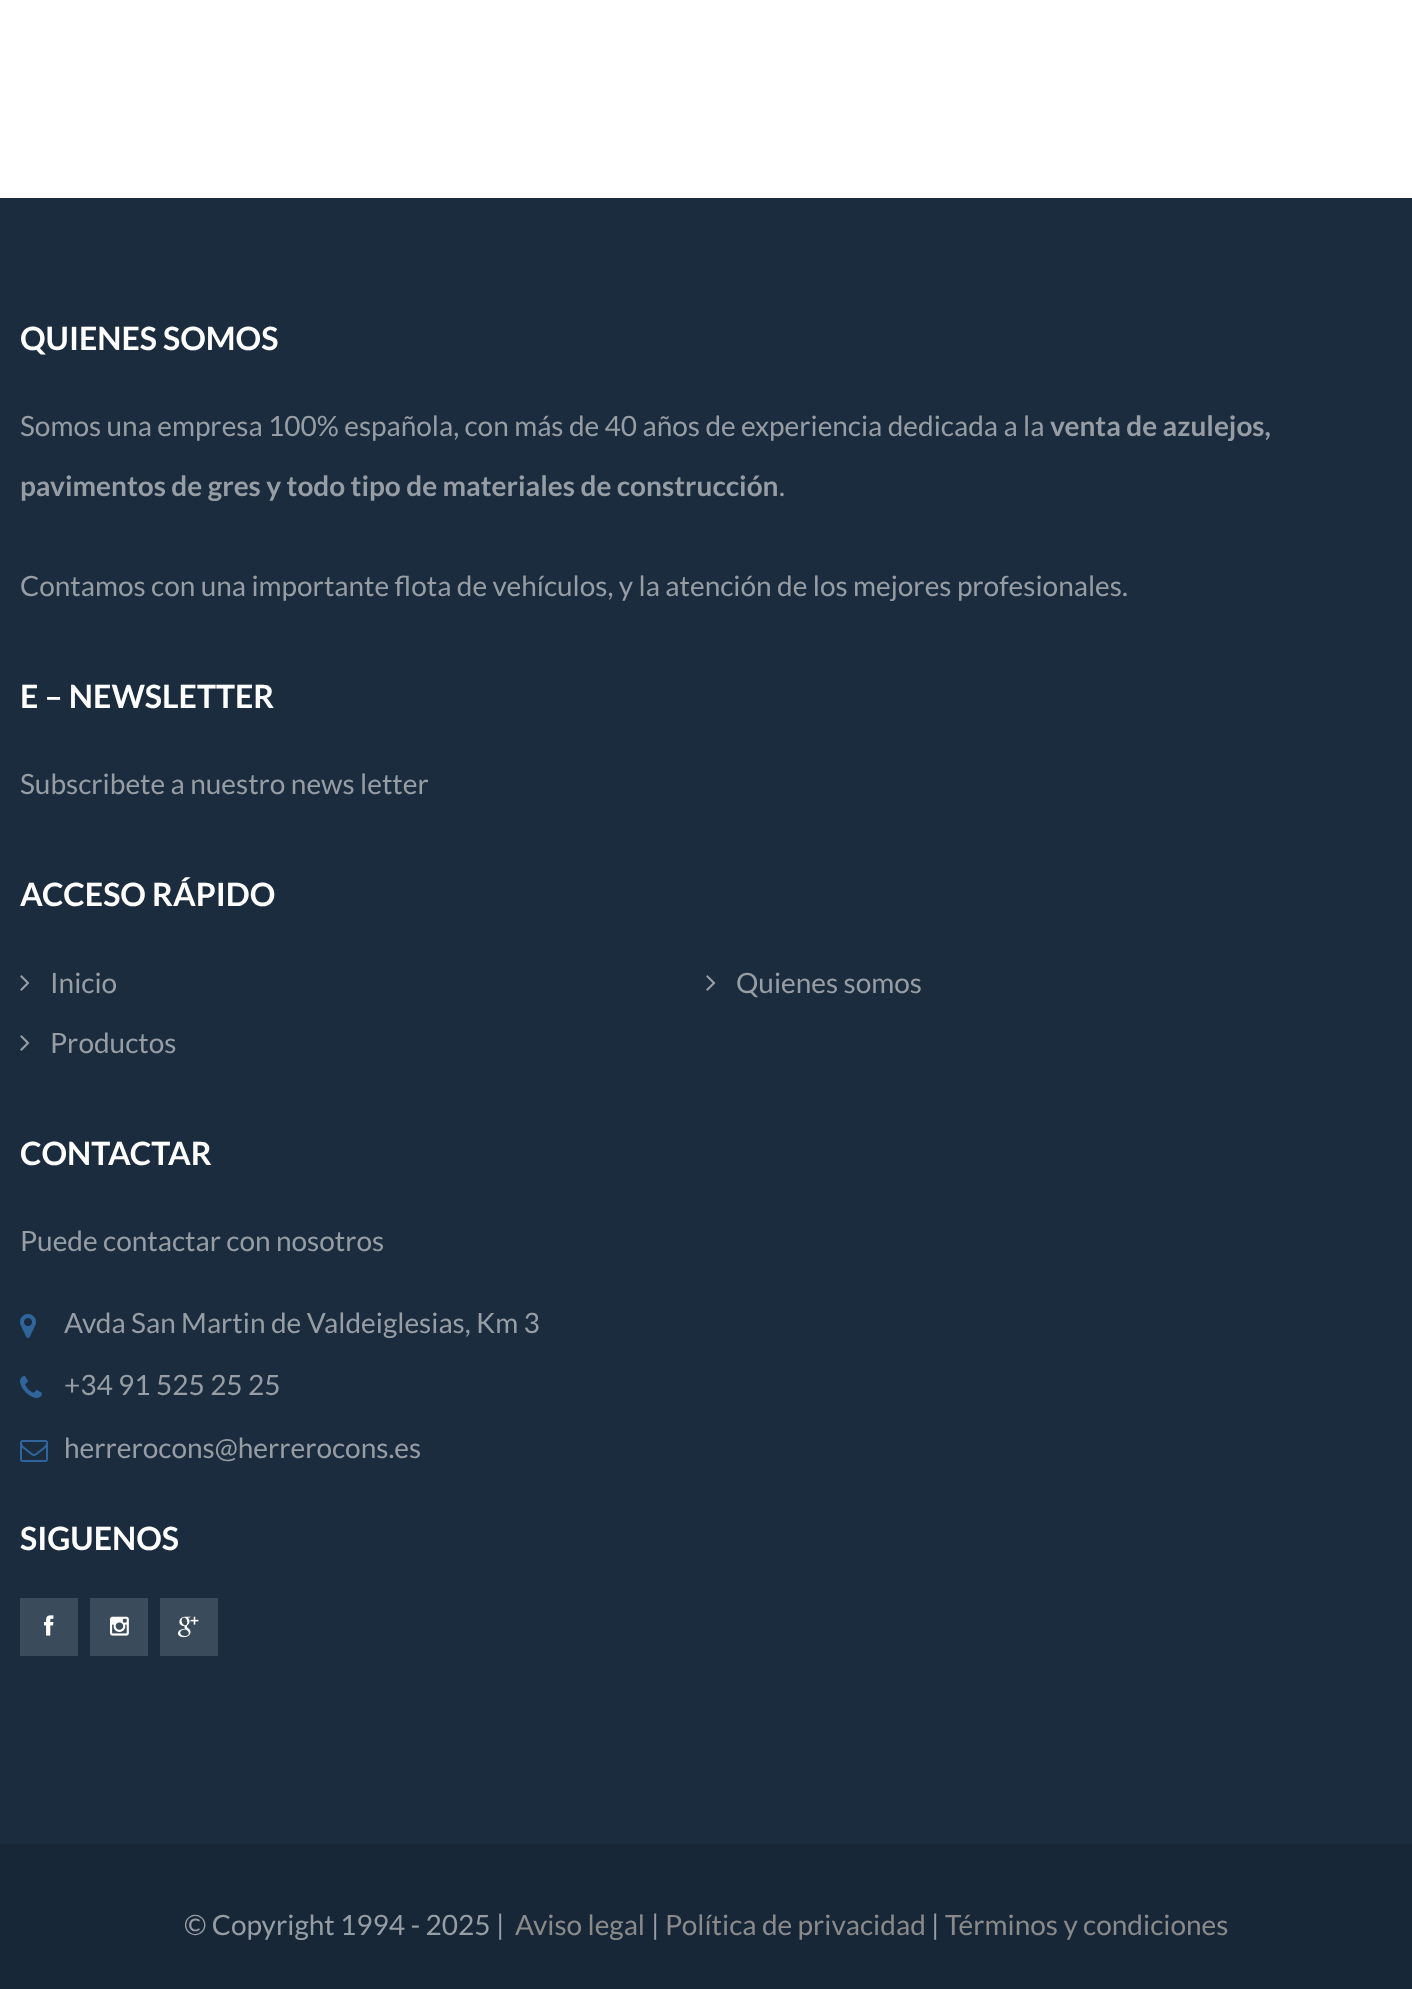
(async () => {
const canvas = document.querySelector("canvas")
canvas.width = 1412
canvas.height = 1989
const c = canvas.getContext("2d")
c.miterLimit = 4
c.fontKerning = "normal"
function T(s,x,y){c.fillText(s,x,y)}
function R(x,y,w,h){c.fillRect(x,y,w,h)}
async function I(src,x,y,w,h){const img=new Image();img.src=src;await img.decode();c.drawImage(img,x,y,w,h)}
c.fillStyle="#fff"
R(0,0,1412,1989)
c.fillStyle="#1b2c3e"
R(0,198,1412,1646)
c.font="bold 32px Lato"
c.fillStyle="#fff"
T("QUIENES SOMOS",20,350)
c.font="28px Lato"
c.fillStyle="#979da4"
T("Somos una empresa 100% española, con más de 40 años de experiencia dedicada a la",20,436)
c.font="bold 28px Lato"
T("venta de azulejos,",1050,436)
T("pavimentos de gres y todo tipo de materiales de construcción",20,496)
c.font="28px Lato"
T(".",779,496)
T("Contamos con una importante flota de vehículos, y la atención de los mejores profesionales.",20,596)
c.font="bold 32px Lato"
c.fillStyle="#fff"
T("E – NEWSLETTER",20,708)
c.font="28px Lato"
c.fillStyle="#979da4"
T("Subscribete a nuestro news letter",20,794)
c.font="bold 32px Lato"
c.fillStyle="#fff"
T("ACCESO RÁPIDO",20,906)
await I("1.png",20,975,10,16)
c.font="28px Lato"
c.fillStyle="#979da4"
T("Inicio",50,993)
await I("1.png",706,975,10,16)
T("Quienes somos",736,993)
await I("1.png",20,1035,10,16)
T("Productos",50,1053)
c.font="bold 32px Lato"
c.fillStyle="#fff"
T("CONTACTAR",20,1165)
c.font="28px Lato"
c.fillStyle="#979da4"
T("Puede contactar con nosotros",20,1251)
await I("2.png",20,1314,16,24)
T("Avda San Martin de Valdeiglesias, Km 3",64,1333)
await I("3.png",20,1376,22,22)
T("+34 91 525 25 25",64,1395)
await I("4.png",20,1440,28,22)
T("herrerocons@herrerocons.es",64,1458)
c.font="bold 32px Lato"
c.fillStyle="#fff"
T("SIGUENOS",20,1550)
c.fillStyle="#3a4b5b"
R(20,1598,58,58)
await I("5.png",44,1615,10,21)
R(90,1598,58,58)
await I("6.png",110,1616,19,20)
R(160,1598,58,58)
await I("7.png",178,1616,21,22)
c.fillStyle="#172737"
R(0,1844,1412,145)
c.font="28px Lato"
c.fillStyle="#979da4"
T("© Copyright 1994 - 2025 |",184,1935)
c.fillStyle="#8a8a8a"
T("Aviso legal",515,1935)
c.fillStyle="#979da4"
T("|",651,1935)
c.fillStyle="#8a8a8a"
T("Política de privacidad",665,1935)
c.fillStyle="#979da4"
T("|",931,1935)
c.fillStyle="#8a8a8a"
T("Términos y condiciones",945,1935)
})()
